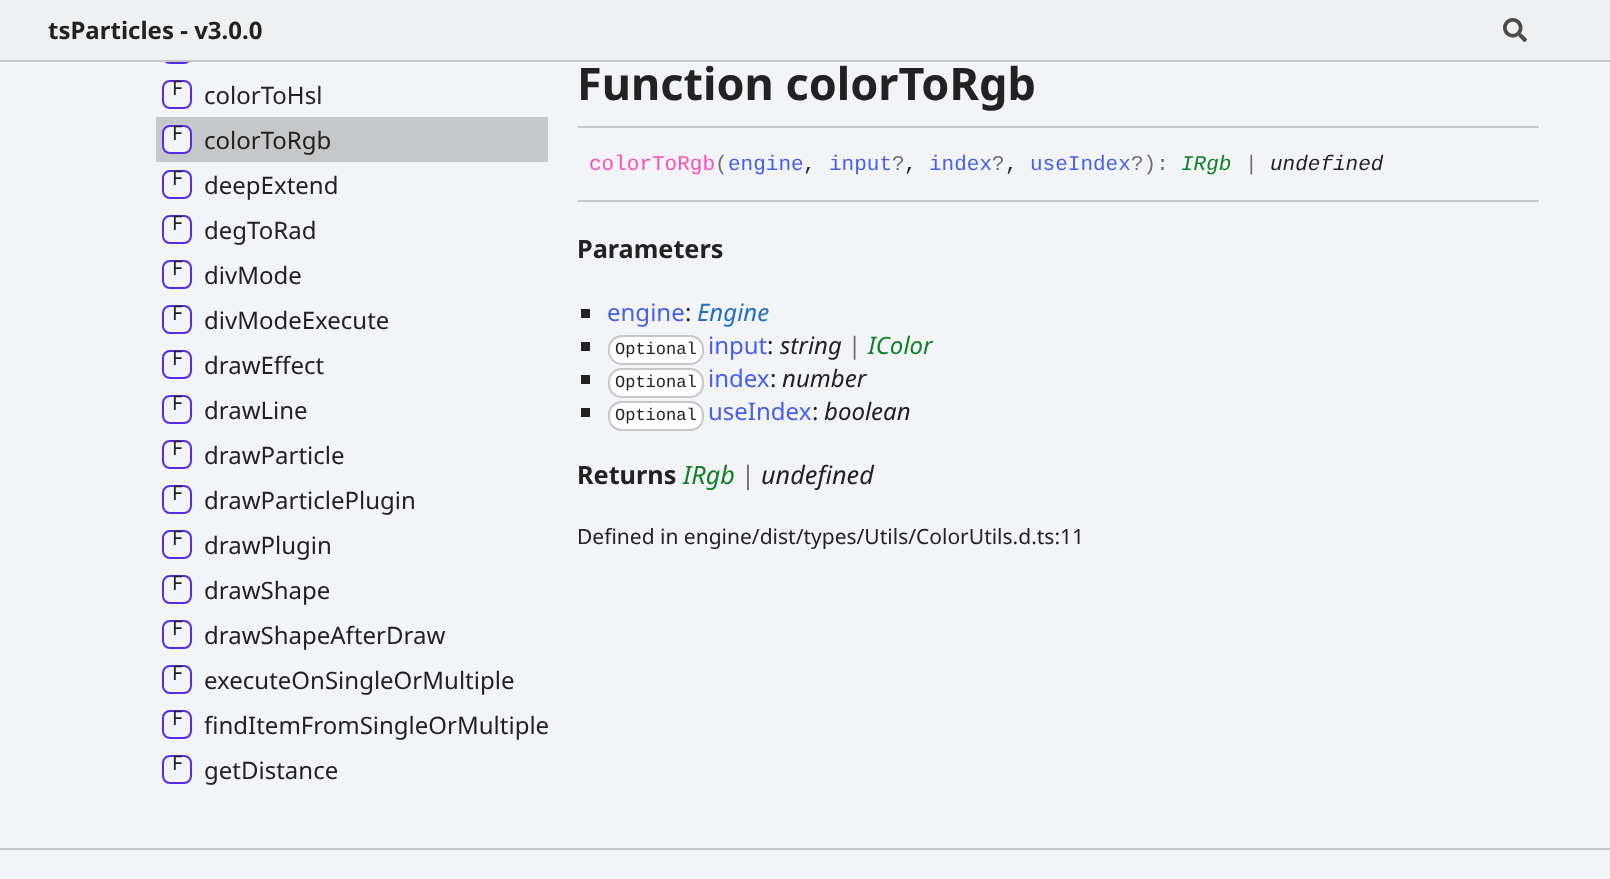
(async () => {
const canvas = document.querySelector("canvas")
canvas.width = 1610
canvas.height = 879
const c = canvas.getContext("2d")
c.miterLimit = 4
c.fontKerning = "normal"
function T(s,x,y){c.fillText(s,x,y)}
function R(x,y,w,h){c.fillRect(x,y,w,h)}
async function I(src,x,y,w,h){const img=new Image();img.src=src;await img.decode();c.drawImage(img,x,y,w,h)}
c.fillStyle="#f2f4f8"
R(0,0,1610,879)
c.beginPath()
c.roundRect(163,36,28,27,7)
c.strokeStyle="#572be7"
c.lineWidth=2
c.stroke()
c.fillStyle="#eff0f1"
R(0,0,1610,60)
c.fillStyle="#c5c7c9"
R(0,60,1610,2)
c.font="bold 24px Noto Sans"
c.fillStyle="#222"
T("tsParticles - v3.0.0",48,39)
await I("1.png",1503,18,24,24)
c.beginPath()
c.roundRect(163,81,28,27,7)
c.stroke()
c.font="20px Noto Sans"
T("F",172,95)
c.font="24px Noto Sans"
T("colorToHsl",204,104)
c.fillStyle="#c5c7c9"
R(156,117,392,45)
c.fillStyle="#f2f4f8"
c.beginPath()
c.roundRect(163,126,28,27,7)
c.fill()
c.stroke()
c.font="20px Noto Sans"
c.fillStyle="#222"
T("F",172,140)
c.font="24px Noto Sans"
T("colorToRgb",204,149)
c.beginPath()
c.roundRect(163,171,28,27,7)
c.stroke()
c.font="20px Noto Sans"
T("F",172,185)
c.font="24px Noto Sans"
T("deepExtend",204,194)
c.beginPath()
c.roundRect(163,216,28,27,7)
c.stroke()
c.font="20px Noto Sans"
T("F",172,230)
c.font="24px Noto Sans"
T("degToRad",204,239)
c.beginPath()
c.roundRect(163,261,28,27,7)
c.stroke()
c.font="20px Noto Sans"
T("F",172,275)
c.font="24px Noto Sans"
T("divMode",204,284)
c.beginPath()
c.roundRect(163,306,28,27,7)
c.stroke()
c.font="20px Noto Sans"
T("F",172,320)
c.font="24px Noto Sans"
T("divModeExecute",204,329)
c.beginPath()
c.roundRect(163,351,28,27,7)
c.stroke()
c.font="20px Noto Sans"
T("F",172,365)
c.font="24px Noto Sans"
T("drawEffect",204,374)
c.beginPath()
c.roundRect(163,396,28,27,7)
c.stroke()
c.font="20px Noto Sans"
T("F",172,410)
c.font="24px Noto Sans"
T("drawLine",204,419)
c.beginPath()
c.roundRect(163,441,28,27,7)
c.stroke()
c.font="20px Noto Sans"
T("F",172,455)
c.font="24px Noto Sans"
T("drawParticle",204,464)
c.beginPath()
c.roundRect(163,486,28,27,7)
c.stroke()
c.font="20px Noto Sans"
T("F",172,500)
c.font="24px Noto Sans"
T("drawParticlePlugin",204,509)
c.beginPath()
c.roundRect(163,531,28,27,7)
c.stroke()
c.font="20px Noto Sans"
T("F",172,545)
c.font="24px Noto Sans"
T("drawPlugin",204,554)
c.beginPath()
c.roundRect(163,576,28,27,7)
c.stroke()
c.font="20px Noto Sans"
T("F",172,590)
c.font="24px Noto Sans"
T("drawShape",204,599)
c.beginPath()
c.roundRect(163,621,28,27,7)
c.stroke()
c.font="20px Noto Sans"
T("F",172,635)
c.font="24px Noto Sans"
T("drawShapeAfterDraw",204,644)
c.beginPath()
c.roundRect(163,666,28,27,7)
c.stroke()
c.font="20px Noto Sans"
T("F",172,680)
c.font="24px Noto Sans"
T("executeOnSingleOrMultiple",204,689)
c.beginPath()
c.roundRect(163,711,28,27,7)
c.stroke()
c.font="20px Noto Sans"
T("F",172,725)
c.font="24px Noto Sans"
T("findItemFromSingleOrMultiple",204,734)
c.beginPath()
c.roundRect(163,756,28,27,7)
c.stroke()
c.font="20px Noto Sans"
T("F",172,770)
c.font="24px Noto Sans"
T("getDistance",204,779)
c.font="bold 45px Noto Sans"
T("Function colorToRgb",577,100)
c.fillStyle="#c5c7c9"
R(578,126,961,2)
R(578,200,961,2)
c.font="21px Liberation Mono"
c.fillStyle="#ff4db8"
T("colorToRgb",589,170)
c.fillStyle="#6e6e6e"
T("(",715,170)
c.fillStyle="#4760ec"
T("engine",728,170)
c.fillStyle="#222"
T(",",803,170)
c.fillStyle="#4760ec"
T("input",829,170)
c.fillStyle="#6e6e6e"
T("?",892,170)
c.fillStyle="#222"
T(",",904,170)
c.fillStyle="#4760ec"
T("index",929,170)
c.fillStyle="#6e6e6e"
T("?",992,170)
c.fillStyle="#222"
T(",",1005,170)
c.fillStyle="#4760ec"
T("useIndex",1030,170)
c.fillStyle="#6e6e6e"
T("?):",1131,170)
c.font="italic 21px Liberation Mono"
c.fillStyle="#108024"
T("IRgb",1181,170)
c.font="21px Liberation Mono"
c.fillStyle="#6e6e6e"
T("|",1245,170)
c.font="italic 21px Liberation Mono"
c.fillStyle="#222"
T("undefined",1270,170)
c.font="bold 25.25px Noto Sans"
T("Parameters",577,258)
R(581,309,9,9)
c.font="24px Noto Sans"
c.fillStyle="#4760ec"
T("engine",607,321)
c.fillStyle="#222"
T(":",685,321)
c.font="italic 24px Noto Sans"
c.fillStyle="#1f70c2"
T("Engine",697,321)
c.fillStyle="#222"
R(581,342,9,9)
c.fillStyle="#fff"
c.beginPath()
c.roundRect(609,336,94,28,13)
c.fill()
c.strokeStyle="#c5c7c9"
c.stroke()
c.font="17px Liberation Mono"
c.fillStyle="#222"
T("Optional",615,354)
c.font="24px Noto Sans"
c.fillStyle="#4760ec"
T("input",708,354)
c.fillStyle="#222"
T(":",767,354)
c.font="italic 24px Noto Sans"
T("string",780,354)
c.font="24px Noto Sans"
c.fillStyle="#6e6e6e"
T("|",848,354)
c.font="italic 24px Noto Sans"
c.fillStyle="#108024"
T("IColor",868,354)
c.fillStyle="#222"
R(581,375,9,9)
c.fillStyle="#fff"
c.beginPath()
c.roundRect(609,369,94,28,13)
c.fill()
c.stroke()
c.font="17px Liberation Mono"
c.fillStyle="#222"
T("Optional",615,387)
c.font="24px Noto Sans"
c.fillStyle="#4760ec"
T("index",708,387)
c.fillStyle="#222"
T(":",770,387)
c.font="italic 24px Noto Sans"
T("number",782,387)
R(581,408,9,9)
c.fillStyle="#fff"
c.beginPath()
c.roundRect(609,402,94,28,13)
c.fill()
c.stroke()
c.font="17px Liberation Mono"
c.fillStyle="#222"
T("Optional",615,420)
c.font="24px Noto Sans"
c.fillStyle="#4760ec"
T("useIndex",708,420)
c.fillStyle="#222"
T(":",812,420)
c.font="italic 24px Noto Sans"
T("boolean",824,420)
c.font="bold 25.25px Noto Sans"
T("Returns",577,484)
c.font="italic 25.25px Noto Sans"
c.fillStyle="#108024"
T("IRgb",683,484)
c.font="25.25px Noto Sans"
c.fillStyle="#6e6e6e"
T("|",741,484)
c.font="italic 25.25px Noto Sans"
c.fillStyle="#222"
T("undefined",761,484)
c.font="21px Noto Sans"
T("Defined in engine/dist/types/Utils/ColorUtils.d.ts:11",577,544)
c.fillStyle="#c5c7c9"
R(0,848,1610,2)
})()
